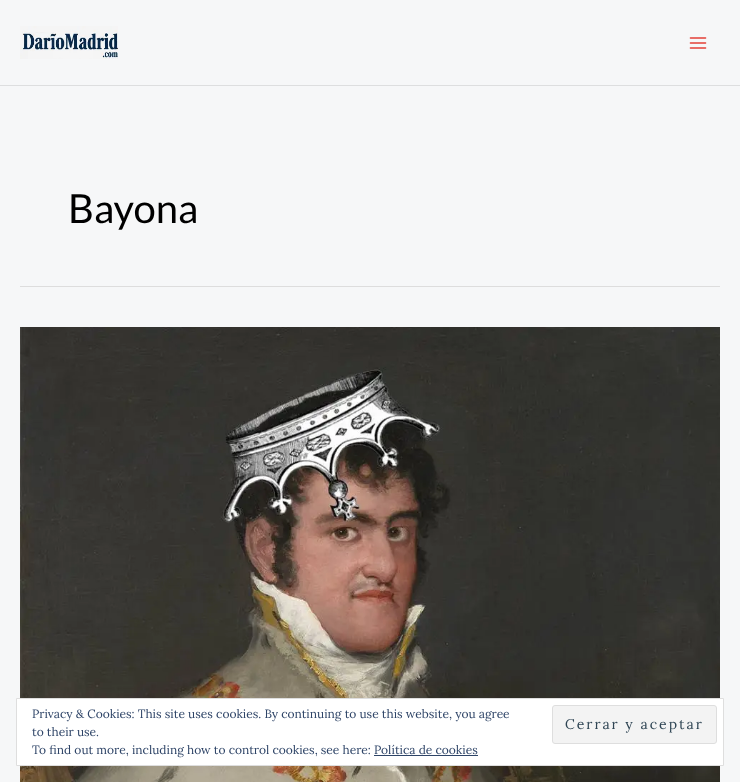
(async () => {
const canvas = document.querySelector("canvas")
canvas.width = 740
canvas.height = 782
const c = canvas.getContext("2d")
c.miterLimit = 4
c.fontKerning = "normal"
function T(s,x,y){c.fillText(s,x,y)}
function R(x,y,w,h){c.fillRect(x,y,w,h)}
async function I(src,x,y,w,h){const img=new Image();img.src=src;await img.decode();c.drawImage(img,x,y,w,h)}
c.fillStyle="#f6f7f8"
R(0,0,740,782)
c.fillStyle="#dddedf"
R(0,85,740,1)
await I("1.png",20,26,98,33)
await I("2.png",689,37,18,12)
c.fillStyle="#ddd"
R(20,286,700,1)
c.font="40px Lato"
c.fillStyle="#000"
T("Bayona",68,223)
await I("3.png",20,327,700,455)
c.fillStyle="#fff"
c.beginPath()
c.rect(16.5,698.5,707,67)
c.fill()
c.strokeStyle="#dedede"
c.stroke()
c.font="12px Lora"
c.fillStyle="#2e4467"
T("Privacy & Cookies: This site uses cookies. By continuing to use this website, you agree",32,718)
T("to their use.",32,736)
c.fillStyle="#f3f3f3"
c.beginPath()
c.roundRect(552.5,705.5,164,38,2.5)
c.fill()
c.stroke()
c.letterSpacing="2px"
c.font="14px Lora"
c.fillStyle="#2e4453"
T("Cerrar y aceptar",565,729)
c.letterSpacing="0px"
c.font="12px Lora"
c.fillStyle="#2e4467"
T("To find out more, including how to control cookies, see here: Política de cookies",32,754)
R(374,755,104,1)
})()
